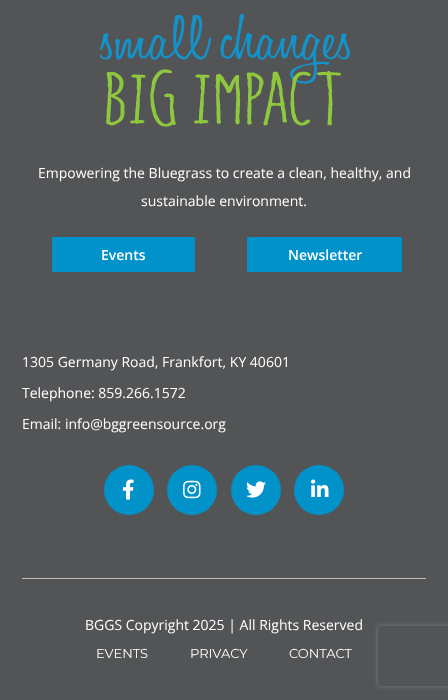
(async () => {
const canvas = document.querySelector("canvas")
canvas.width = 448
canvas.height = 700
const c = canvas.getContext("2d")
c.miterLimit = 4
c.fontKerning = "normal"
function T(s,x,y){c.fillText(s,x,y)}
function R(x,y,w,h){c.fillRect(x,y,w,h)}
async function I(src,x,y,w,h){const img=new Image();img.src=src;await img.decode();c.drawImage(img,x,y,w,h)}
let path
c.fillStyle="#535456"
R(0,0,448,700)
await I("1.png",99,14,251,113)
c.font="14px Open Sans"
c.fillStyle="#fff"
T("Empowering the Bluegrass to create a clean, healthy, and",38,178)
T("sustainable environment.",141,206)
c.fillStyle="#0192c9"
R(52,237,143,35)
c.font="600 14px Open Sans"
c.fillStyle="#fff"
T("Events",101,260)
c.fillStyle="#0192c9"
R(247,237,155,35)
c.fillStyle="#fff"
T("Newsletter",288,260)
c.font="14px Open Sans"
T("1305 Germany Road, Frankfort, KY 40601",22,367)
T("Telephone: 859.266.1572",22,398)
T("Email: info@bggreensource.org",22,429)
c.fillStyle="#0192c9"
c.beginPath()
c.arc(129,490,25,0,7)
c.fill()
await I("2.png",122,479,12,21)
c.beginPath()
c.arc(192,490,25,0,7)
c.fill()
await I("3.png",183,480,18,19)
c.beginPath()
c.arc(256,490,25,0,7)
c.fill()
await I("4.png",246,481,20,17)
c.beginPath()
c.arc(319,490,25,0,7)
c.fill()
await I("5.png",311,479,18,18)
c.fillStyle="#c2bbbb"
R(22,578,404,1)
c.fillStyle="#fff"
T("BGGS Copyright 2025 | All Rights Reserved",85,630)
c.font="13px Montserrat"
T("EVENTS",96,658)
T("PRIVACY",190,658)
T("CONTACT",289,658)
c.save()
path = new Path2D("M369 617h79v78h-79zm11 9h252c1 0 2 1 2 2v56c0 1-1 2-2 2h-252c-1 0-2-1-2-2v-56c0-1 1-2 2-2z")
c.clip(path,"evenodd")
c.fillStyle="#808080"
c.filter="blur(2.5px)"
c.beginPath()
c.roundRect(378,626,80,60,2)
c.fill()
c.filter="none"
c.restore()
})()
